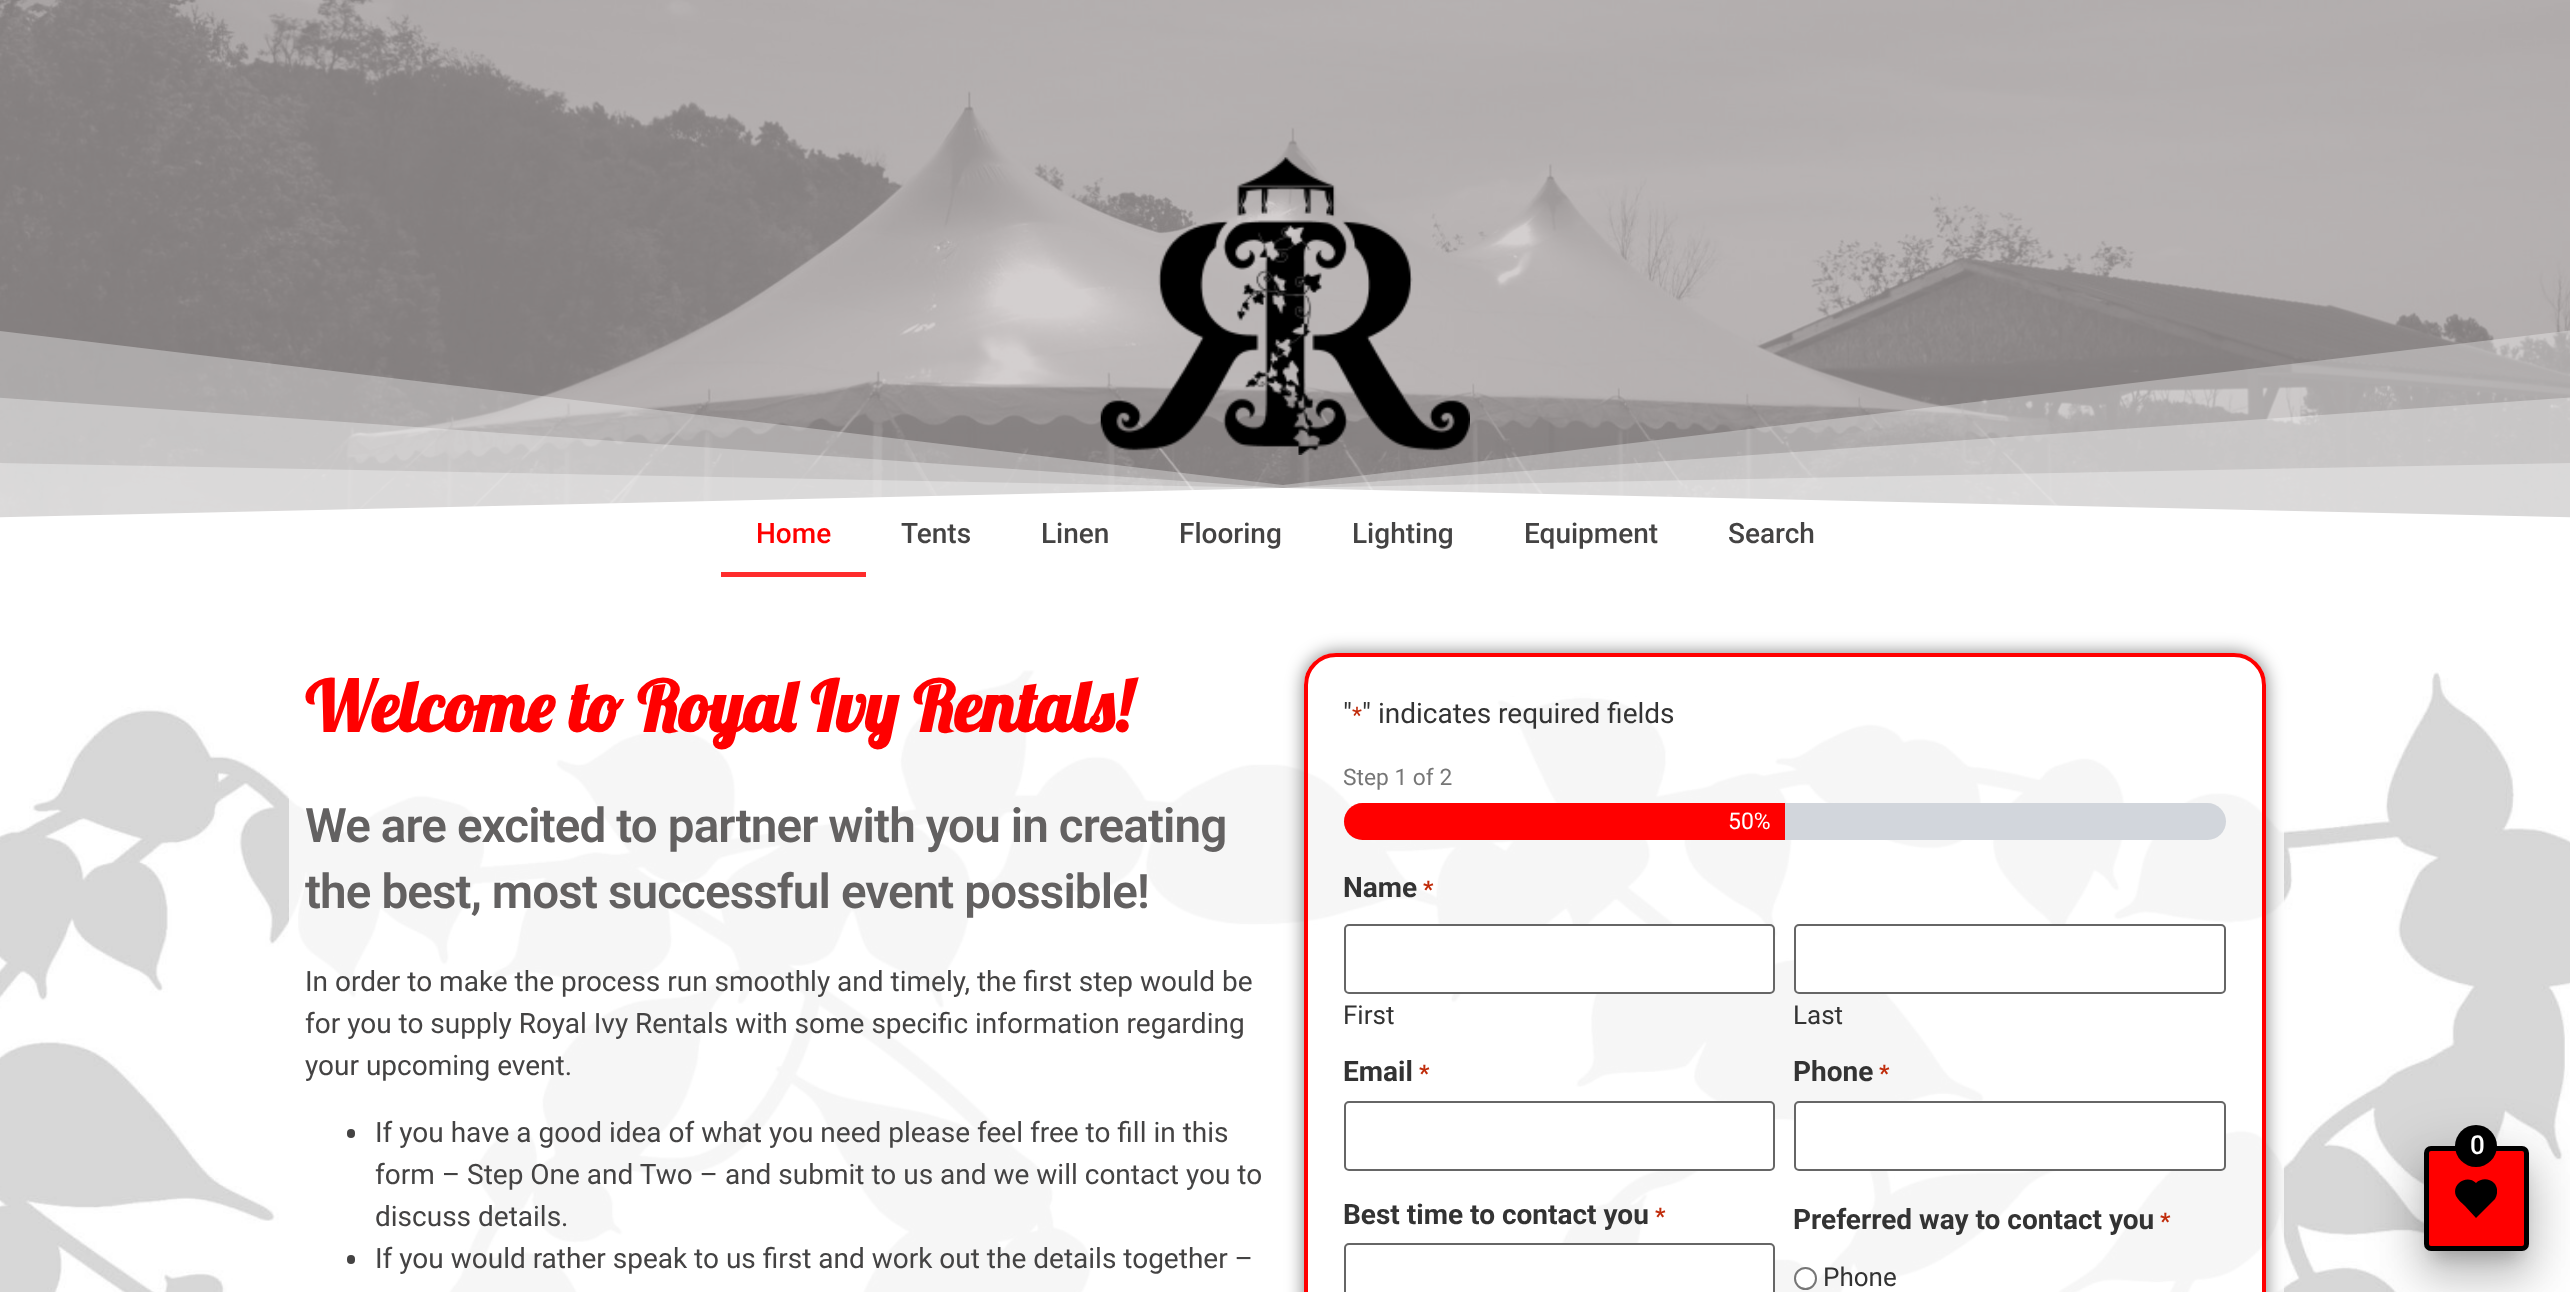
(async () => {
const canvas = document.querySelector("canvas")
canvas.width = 2570
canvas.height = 1292
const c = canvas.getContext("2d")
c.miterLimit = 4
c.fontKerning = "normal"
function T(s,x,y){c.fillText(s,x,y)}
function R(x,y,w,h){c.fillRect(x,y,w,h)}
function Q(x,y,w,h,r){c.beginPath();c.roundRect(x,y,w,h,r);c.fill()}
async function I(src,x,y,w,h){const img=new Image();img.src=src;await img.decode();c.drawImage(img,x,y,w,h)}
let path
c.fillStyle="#fff"
R(0,0,2570,1292)
await I("1.png",0,0,2570,518)
c.fillStyle="#ffffff54"
path = new Path2D("M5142 614v-592l-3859 463l-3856-463v592z")
c.fill(path)
path = new Path2D("M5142 614v-397l-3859 271l-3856-271v397z")
c.fill(path)
await I("2.png",1100,157,370,298)
path = new Path2D("M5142 614v-201l-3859 75l-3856-75v201z")
c.fill(path)
c.fillStyle="#fff"
path = new Path2D("M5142 614v-38l-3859-88l-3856 88v38z")
c.fill(path)
c.font="500 28px Roboto"
c.fillStyle="#f00"
T("Home",756,543)
c.fillStyle="#ff2c2c"
R(721,572,145,5)
c.fillStyle="#444343"
T("Tents",901,543)
T("Linen",1041,543)
T("Flooring",1179,543)
T("Lighting",1352,543)
T("Equipment",1524,543)
T("Search",1728,543)
await I("3.png",0,670,2570,622)
c.fillStyle="#ffffffc7"
R(289,670,997,622)
c.font="bold 70px Lobster"
c.fillStyle="#f00"
T("Welcome to Royal Ivy Rentals!",305,732)
c.letterSpacing="-0.9px"
c.font="600 47.6px Roboto"
c.fillStyle="#636161"
T("We are excited to partner with you in creating",305,842)
T("the best, most successful event possible!",305,908)
c.letterSpacing="0px"
c.font="28px Roboto"
c.fillStyle="#444343"
T("In order to make the process run smoothly and timely, the first step would be",305,991)
T("for you to supply Royal Ivy Rentals with some specific information regarding",305,1033)
T("your upcoming event.",305,1075)
Q(347,1129,8,9,4)
T("If you have a good idea of what you need please feel free to fill in this",375,1142)
T("form – Step One and Two – and submit to us and we will contact you to",375,1184)
T("discuss details.",375,1226)
Q(347,1255,8,9,4)
T("If you would rather speak to us first and work out the details together –",375,1268)
c.fillStyle="#ffffffc7"
R(1286,697,998,595)
c.save()
path = new Path2D("M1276 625h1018v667h-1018zm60 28h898c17.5 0 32 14.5 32 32v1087c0 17.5-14.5 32-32 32h-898c-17.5 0-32-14.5-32-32v-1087c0-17.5 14.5-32 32-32z")
c.clip(path,"evenodd")
c.fillStyle="#00000080"
c.filter="blur(9px)"
c.beginPath()
c.roundRect(1304,653,962,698,32)
c.fill()
c.filter="none"
c.restore()
c.beginPath()
c.roundRect(1306,655,958,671,30)
c.strokeStyle="#f00"
c.lineWidth=4
c.stroke()
c.fillStyle="#333"
T("\"",1343,723)
c.font="23px Roboto"
c.fillStyle="#c02b0a"
T("*",1352,723)
c.font="28px Roboto"
c.fillStyle="#333"
T("\" indicates required fields",1362,723)
c.font="22.75px Roboto"
c.fillStyle="#767676"
T("Step 1 of 2",1343,785)
c.fillStyle="#d2d6dc"
Q(1344,803,882,37,18.5)
c.fillStyle="#f00"
c.beginPath()
c.roundRect(1344,803,441,37,[18.5,0,0,18.5])
c.fill()
c.font="23px Roboto"
c.fillStyle="#fff"
T("50%",1728,829)
c.font="bold 28px Roboto"
c.fillStyle="#333"
T("Name",1343,897)
c.font="bold 23px Roboto"
c.fillStyle="#c02b0a"
T("*",1423,897)
c.fillStyle="#fff"
c.beginPath()
c.roundRect(1345,925,429,68,4)
c.fill()
c.strokeStyle="#666"
c.lineWidth=2
c.stroke()
c.font="26px Roboto"
c.fillStyle="#333"
T("First",1343,1024)
c.fillStyle="#fff"
c.beginPath()
c.roundRect(1795,925,430,68,4)
c.fill()
c.stroke()
c.fillStyle="#333"
T("Last",1793,1024)
c.font="bold 28px Roboto"
T("Email",1343,1081)
c.font="bold 23px Roboto"
c.fillStyle="#c02b0a"
T("*",1419,1081)
c.fillStyle="#fff"
c.beginPath()
c.roundRect(1345,1102,429,68,4)
c.fill()
c.stroke()
c.font="bold 28px Roboto"
c.fillStyle="#333"
T("Phone",1793,1081)
c.font="bold 23px Roboto"
c.fillStyle="#c02b0a"
T("*",1879,1081)
c.fillStyle="#fff"
c.beginPath()
c.roundRect(1795,1102,430,68,4)
c.fill()
c.stroke()
c.font="bold 28px Roboto"
c.fillStyle="#333"
T("Best time to contact you",1343,1224)
c.font="bold 23px Roboto"
c.fillStyle="#c02b0a"
T("*",1655,1224)
c.fillStyle="#fff"
c.beginPath()
c.roundRect(1345,1244,429,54,4)
c.fill()
c.stroke()
c.font="bold 28px Roboto"
c.fillStyle="#333"
T("Preferred way to contact you",1793,1229)
c.font="bold 23px Roboto"
c.fillStyle="#c02b0a"
T("*",2160,1229)
c.fillStyle="#fff"
c.beginPath()
c.arc(1805.5,1278.5,10.5,0,7)
c.fill()
c.strokeStyle="#767676"
c.stroke()
c.font="26px Roboto"
c.fillStyle="#333"
T("Phone",1823,1286)
c.fillStyle="#00000033"
c.filter="blur(9px)"
c.beginPath()
c.rect(2433,1169,87,88)
c.fill()
c.filter="none"
c.fillStyle="#0000001f"
c.filter="blur(26px)"
c.beginPath()
c.roundRect(2415,1148,123,123,16)
c.fill()
c.filter="none"
c.fillStyle="#00000024"
c.filter="blur(21px)"
c.beginPath()
c.roundRect(2420,1171,112,112,11)
c.fill()
c.filter="none"
c.fillStyle="#f00"
c.beginPath()
c.roundRect(2426.5,1148.5,100,100,4.5)
c.fill()
c.strokeStyle="#000"
c.lineWidth=5
c.stroke()
c.fillStyle="#000"
c.beginPath()
c.arc(2476,1146,21,0,7)
c.fill()
c.letterSpacing="-1px"
c.font="500 26px Roboto"
c.fillStyle="#fff"
T("0",2470,1154)
c.save()
c.beginPath()
c.rect(2455,1178,42,42)
c.clip()
c.fillStyle="#000"
path = new Path2D("M2494 1183c-5-5-13-5-18 0c-9-9-25 1-20 13c2 4 6 7 9 10l11 12l19-19c3-5 3-12-1-16z")
c.fill(path)
c.restore()
})()
